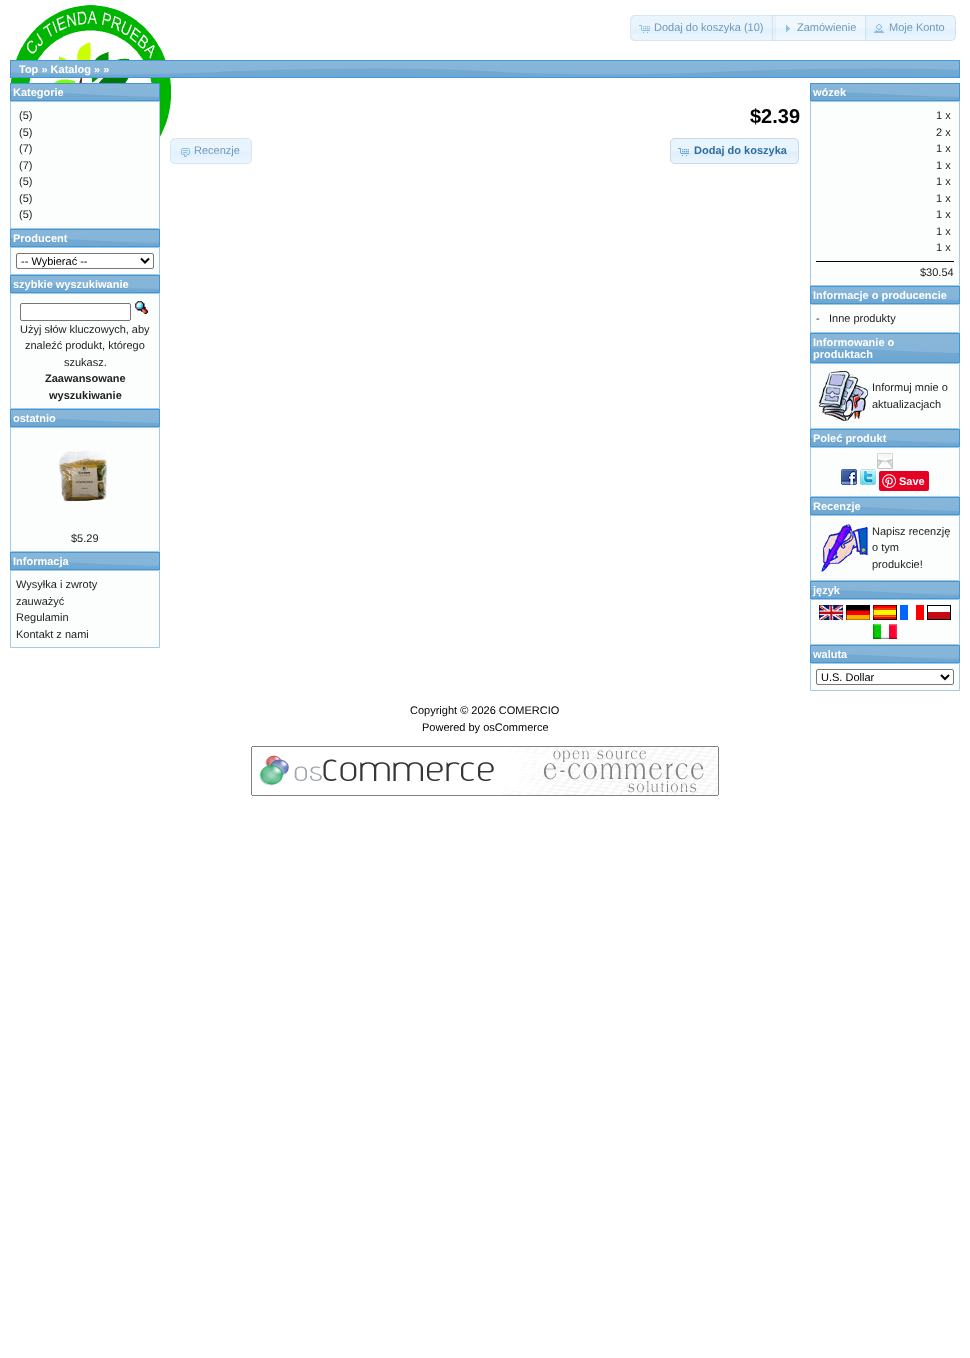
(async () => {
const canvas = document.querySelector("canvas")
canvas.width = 970
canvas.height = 1358
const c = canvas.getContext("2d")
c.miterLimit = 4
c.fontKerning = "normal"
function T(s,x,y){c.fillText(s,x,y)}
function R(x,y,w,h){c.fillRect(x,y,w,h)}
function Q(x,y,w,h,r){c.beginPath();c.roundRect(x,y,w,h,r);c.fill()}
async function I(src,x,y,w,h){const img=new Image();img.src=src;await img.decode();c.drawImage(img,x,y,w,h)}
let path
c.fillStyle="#fff"
R(0,0,970,1358)
await I("1.png",10,5,161,132)
c.fillStyle="#e9f4fd"
c.beginPath()
c.roundRect(630,15,146,26,[5,0,0,5])
c.fill()
c.fillStyle="#e2f1fc"
R(630,28,146,6)
c.beginPath()
c.roundRect(630.5,15.5,145,25,[4.5,0,0,4.5])
c.strokeStyle="#d6e6f2"
c.stroke()
await I("2.png",639,25,11,8)
c.font="11px Liberation Sans"
c.fillStyle="#6d9abb"
T("Dodaj do koszyka (10)",654,31)
await I("3.png",772,15,96,26)
c.strokeStyle="#c5dbecb3"
c.strokeRect(772.5,15.5,95,25)
await I("4.png",786,25,4,7)
T("Zamówienie",797,31)
c.fillStyle="#dfeffcb3"
c.beginPath()
c.roundRect(865,15,91,26,[0,5,5,0])
c.fill()
await I("5.png",865,15,91,26)
c.beginPath()
c.roundRect(865.5,15.5,90,25,[0,4.5,4.5,0])
c.stroke()
await I("6.png",874,24,10,9)
c.fillStyle="#6d9abb"
T("Moje Konto",889,31)
await I("7.png",11,61,948,16)
c.strokeStyle="#4297d7"
c.strokeRect(10.5,60.5,949,17)
c.font="bold 11px Liberation Sans"
c.fillStyle="#fff"
T("Top » Katalog » »",19,73)
await I("8.png",11,84,148,16)
c.strokeRect(10.5,83.5,149,17)
T("Kategorie",13,96)
c.fillStyle="#fcfdfd"
c.beginPath()
c.rect(10.5,101.5,149,127)
c.fill()
c.strokeStyle="#a6c9e2"
c.stroke()
c.font="11px Liberation Sans"
c.fillStyle="#222"
T("(5)",19,119)
T("(5)",19,136)
T("(7)",19,152)
T("(7)",19,169)
T("(5)",19,185)
T("(5)",19,202)
T("(5)",19,218)
await I("8.png",11,230,148,16)
c.strokeStyle="#4297d7"
c.strokeRect(10.5,229.5,149,17)
c.font="bold 11px Liberation Sans"
c.fillStyle="#fff"
T("Producent",13,242)
c.fillStyle="#fcfdfd"
c.beginPath()
c.rect(10.5,247.5,149,27)
c.fill()
c.strokeStyle="#a6c9e2"
c.stroke()
c.fillStyle="#fff"
c.beginPath()
c.roundRect(16.5,253.5,137,15,1.5)
c.fill()
c.strokeStyle="#767676"
c.stroke()
path = new Path2D("M141 258.5l4 4l4-4")
c.strokeStyle="#000"
c.lineWidth=2
c.stroke(path)
c.font="11px Liberation Sans"
c.fillStyle="#000"
T("-- Wybierać --",21,265)
await I("8.png",11,276,148,16)
c.strokeStyle="#4297d7"
c.lineWidth=1
c.strokeRect(10.5,275.5,149,17)
c.font="bold 11px Liberation Sans"
c.fillStyle="#fff"
T("szybkie wyszukiwanie",13,288)
c.fillStyle="#fcfdfd"
c.beginPath()
c.rect(10.5,293.5,149,115)
c.fill()
c.strokeStyle="#a6c9e2"
c.stroke()
c.fillStyle="#fff"
c.beginPath()
c.roundRect(20.5,303.5,110,17,1.5)
c.fill()
c.strokeStyle="#767676"
c.stroke()
await I("9.png",135,301,13,13)
c.font="11px Liberation Sans"
c.fillStyle="#222"
T("Użyj słów kluczowych, aby",20,333)
T("znaleźć produkt, którego",25,349)
T("szukasz.",64,366)
c.font="bold 11px Liberation Sans"
T("Zaawansowane",45,382)
T("wyszukiwanie",49,399)
await I("8.png",11,410,148,16)
c.strokeStyle="#4297d7"
c.strokeRect(10.5,409.5,149,17)
c.fillStyle="#fff"
T("ostatnio",13,422)
c.fillStyle="#fcfdfd"
c.beginPath()
c.rect(10.5,427.5,149,124)
c.fill()
c.strokeStyle="#a6c9e2"
c.stroke()
await I("10.png",58,451,51,51)
c.font="11px Liberation Sans"
c.fillStyle="#222"
T("$5.29",71,542)
await I("8.png",11,553,148,16)
c.strokeStyle="#4297d7"
c.strokeRect(10.5,552.5,149,17)
c.font="bold 11px Liberation Sans"
c.fillStyle="#fff"
T("Informacja",13,565)
c.fillStyle="#fcfdfd"
c.beginPath()
c.rect(10.5,570.5,149,77)
c.fill()
c.strokeStyle="#a6c9e2"
c.stroke()
c.font="11px Liberation Sans"
c.fillStyle="#222"
T("Wysyłka i zwroty",16,588)
T("zauważyć",16,605)
T("Regulamin",16,621)
T("Kontakt z nami",16,638)
c.font="bold 20px Liberation Sans"
c.fillStyle="#000"
T("$2.39",750,123)
c.fillStyle="#e9f4fd"
Q(170,138,82,26,5)
await I("11.png",170,151,82,12)
c.beginPath()
c.roundRect(170.5,138.5,81,25,4.5)
c.strokeStyle="#d6e6f2"
c.stroke()
await I("12.png",181,148,9,9)
c.font="11px Liberation Sans"
c.fillStyle="#6d9abb"
T("Recenzje",194,154)
await I("13.png",670,138,129,26)
c.beginPath()
c.roundRect(670.5,138.5,128,25,4.5)
c.strokeStyle="#c5dbec"
c.stroke()
await I("14.png",678,148,11,8)
c.font="bold 11px Liberation Sans"
c.fillStyle="#2e6e9e"
T("Dodaj do koszyka",694,154)
await I("8.png",811,84,148,16)
c.strokeStyle="#4297d7"
c.strokeRect(810.5,83.5,149,17)
c.fillStyle="#fff"
T("wózek",813,96)
c.fillStyle="#fcfdfd"
c.beginPath()
c.rect(810.5,101.5,149,184)
c.fill()
c.strokeStyle="#a6c9e2"
c.stroke()
c.font="11px Liberation Sans"
c.fillStyle="#222"
T("1 x",936,119)
T("2 x",936,136)
T("1 x",936,152)
T("1 x",936,169)
T("1 x",936,185)
T("1 x",936,202)
T("1 x",936,218)
T("1 x",936,235)
T("1 x",936,251)
c.fillStyle="#000"
R(816,261,138,1)
c.fillStyle="#222"
T("$30.54",920,276)
await I("8.png",811,287,148,16)
c.strokeStyle="#4297d7"
c.strokeRect(810.5,286.5,149,17)
c.font="bold 11px Liberation Sans"
c.fillStyle="#fff"
T("Informacje o producencie",813,299)
c.fillStyle="#fcfdfd"
c.beginPath()
c.rect(810.5,304.5,149,28)
c.fill()
c.strokeStyle="#a6c9e2"
c.stroke()
c.font="11px Liberation Sans"
c.fillStyle="#222"
T("-",816,322)
T("Inne produkty",829,322)
await I("15.png",811,334,148,28)
c.strokeStyle="#4297d7"
c.strokeRect(810.5,333.5,149,29)
c.font="bold 11px Liberation Sans"
c.fillStyle="#fff"
T("Informowanie o",813,346)
T("produktach",813,358)
c.fillStyle="#fcfdfd"
c.beginPath()
c.rect(810.5,363.5,149,65)
c.fill()
c.strokeStyle="#a6c9e2"
c.stroke()
await I("16.png",819,371,49,50)
c.font="11px Liberation Sans"
c.fillStyle="#222"
T("Informuj mnie o",872,391)
T("aktualizacjach",872,408)
await I("8.png",811,430,148,16)
c.strokeStyle="#4297d7"
c.strokeRect(810.5,429.5,149,17)
c.font="bold 11px Liberation Sans"
c.fillStyle="#fff"
T("Poleć produkt",813,442)
c.fillStyle="#fcfdfd"
c.beginPath()
c.rect(810.5,447.5,149,49)
c.fill()
c.strokeStyle="#a6c9e2"
c.stroke()
await I("17.png",877,453,16,16)
await I("18.png",841,469,16,16)
await I("19.png",860,469,16,16)
c.fillStyle="#e60023"
Q(879,471,50,20,2)
await I("20.png",882,474,14,14)
c.fillStyle="#fff"
T("Save",899,485)
await I("8.png",811,498,148,16)
c.strokeStyle="#4297d7"
c.strokeRect(810.5,497.5,149,17)
T("Recenzje",813,510)
c.fillStyle="#fcfdfd"
c.beginPath()
c.rect(810.5,515.5,149,65)
c.fill()
c.strokeStyle="#a6c9e2"
c.stroke()
await I("21.png",821,524,47,48)
c.font="11px Liberation Sans"
c.fillStyle="#222"
T("Napisz recenzję",872,535)
T("o tym",872,551)
T("produkcie!",872,568)
await I("8.png",811,582,148,16)
c.strokeStyle="#4297d7"
c.strokeRect(810.5,581.5,149,17)
c.font="bold 11px Liberation Sans"
c.fillStyle="#fff"
T("język",813,594)
c.fillStyle="#fcfdfd"
c.beginPath()
c.rect(810.5,599.5,149,45)
c.fill()
c.strokeStyle="#a6c9e2"
c.stroke()
await I("22.png",819,605,24,15)
await I("23.png",846,605,24,15)
await I("24.png",873,605,24,15)
await I("25.png",900,605,24,15)
await I("26.png",927,605,24,15)
await I("27.png",873,624,24,15)
await I("8.png",811,646,148,16)
c.strokeStyle="#4297d7"
c.strokeRect(810.5,645.5,149,17)
c.fillStyle="#fff"
T("waluta",813,658)
c.fillStyle="#fcfdfd"
c.beginPath()
c.rect(810.5,663.5,149,27)
c.fill()
c.strokeStyle="#a6c9e2"
c.stroke()
c.fillStyle="#fff"
c.beginPath()
c.roundRect(816.5,669.5,137,15,1.5)
c.fill()
c.strokeStyle="#767676"
c.stroke()
path = new Path2D("M941 675l4 4l4-4")
c.strokeStyle="#000"
c.lineWidth=2
c.stroke(path)
c.font="11px Liberation Sans"
c.fillStyle="#000"
T("U.S. Dollar",821,681)
T("Copyright © 2026 COMERCIO",410,714)
T("Powered by osCommerce",422,731)
await I("28.png",251,746,468,50)
})()
